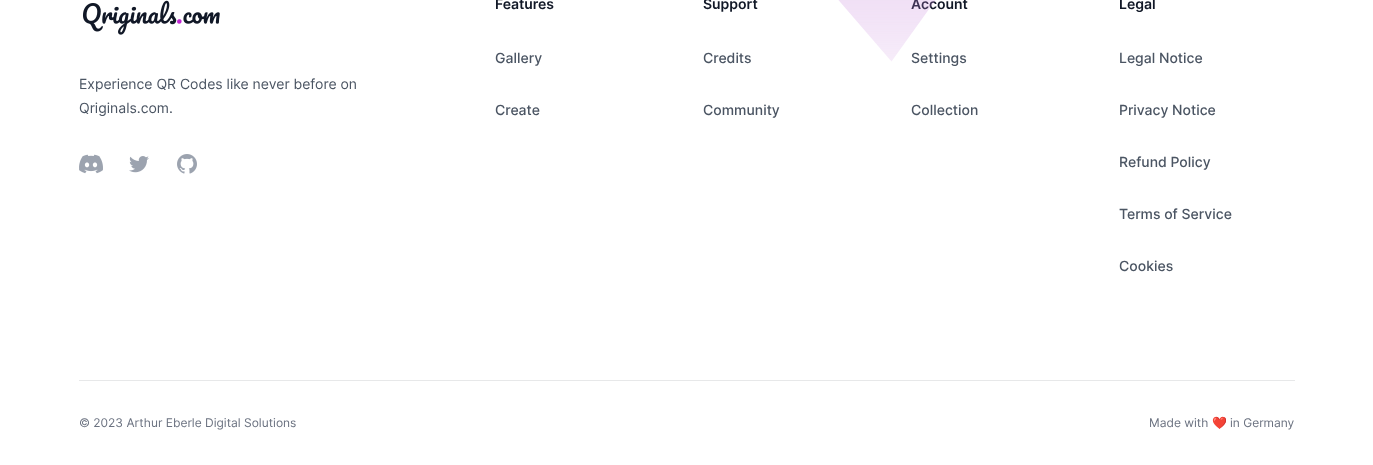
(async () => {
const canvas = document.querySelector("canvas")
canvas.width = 1373
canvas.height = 465
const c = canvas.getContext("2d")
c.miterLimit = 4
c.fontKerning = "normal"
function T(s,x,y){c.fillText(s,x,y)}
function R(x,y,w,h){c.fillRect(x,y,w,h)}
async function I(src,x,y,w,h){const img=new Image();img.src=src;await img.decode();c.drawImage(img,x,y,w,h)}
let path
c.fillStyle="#fff"
R(0,0,1373,465)
await I("1.png",83,0,137,35)
c.font="14px Inter"
c.fillStyle="#4b5563"
T("Experience QR Codes like never before on",79,89)
T("Qriginals.com.",79,113)
await I("2.png",79,154,24,20)
await I("3.png",129,156,20,17)
await I("4.png",177,154,20,20)
c.font="600 14px Inter"
c.fillStyle="#111827"
T("Features",495,9)
c.font="500 14px Inter"
c.fillStyle="#4b5563"
T("Gallery",495,63)
T("Create",495,115)
c.font="600 14px Inter"
c.fillStyle="#111827"
T("Support",703,9)
c.font="500 14px Inter"
c.fillStyle="#4b5563"
T("Credits",703,63)
T("Community",703,115)
c.font="600 14px Inter"
c.fillStyle="#111827"
T("Account",911,9)
c.font="500 14px Inter"
c.fillStyle="#4b5563"
T("Settings",911,63)
T("Collection",911,115)
c.font="600 14px Inter"
c.fillStyle="#111827"
T("Legal",1119,9)
c.font="500 14px Inter"
c.fillStyle="#4b5563"
T("Legal Notice",1119,63)
T("Privacy Notice",1119,115)
T("Refund Policy",1119,167)
T("Terms of Service",1119,219)
T("Cookies",1119,271)
c.fillStyle="#e7e8e9"
R(79,380,1216,1)
c.font="12px Inter"
c.fillStyle="#6b7280"
T("© 2023 Arthur Eberle Digital Solutions",79,427)
T("Made with",1149,427)
c.font="12px Noto Color Emoji"
T("❤️",1212,427)
c.font="12px Inter"
T("in Germany",1230,427)
c.save()
path = new Path2D("M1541-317.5l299 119l-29-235.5l-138.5-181.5l-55.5 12.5l-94.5 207l-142 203l-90.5 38.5l-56.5-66.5l-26.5-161.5l-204.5 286l-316.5-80l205.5 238l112.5-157l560 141.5z")
c.clip(path)
c.fillStyle="#c885d94d"
c.filter="blur(64px)"
c.beginPath()
c.rect(686,-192,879,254)
c.fill()
c.filter="none"
c.restore()
})()
